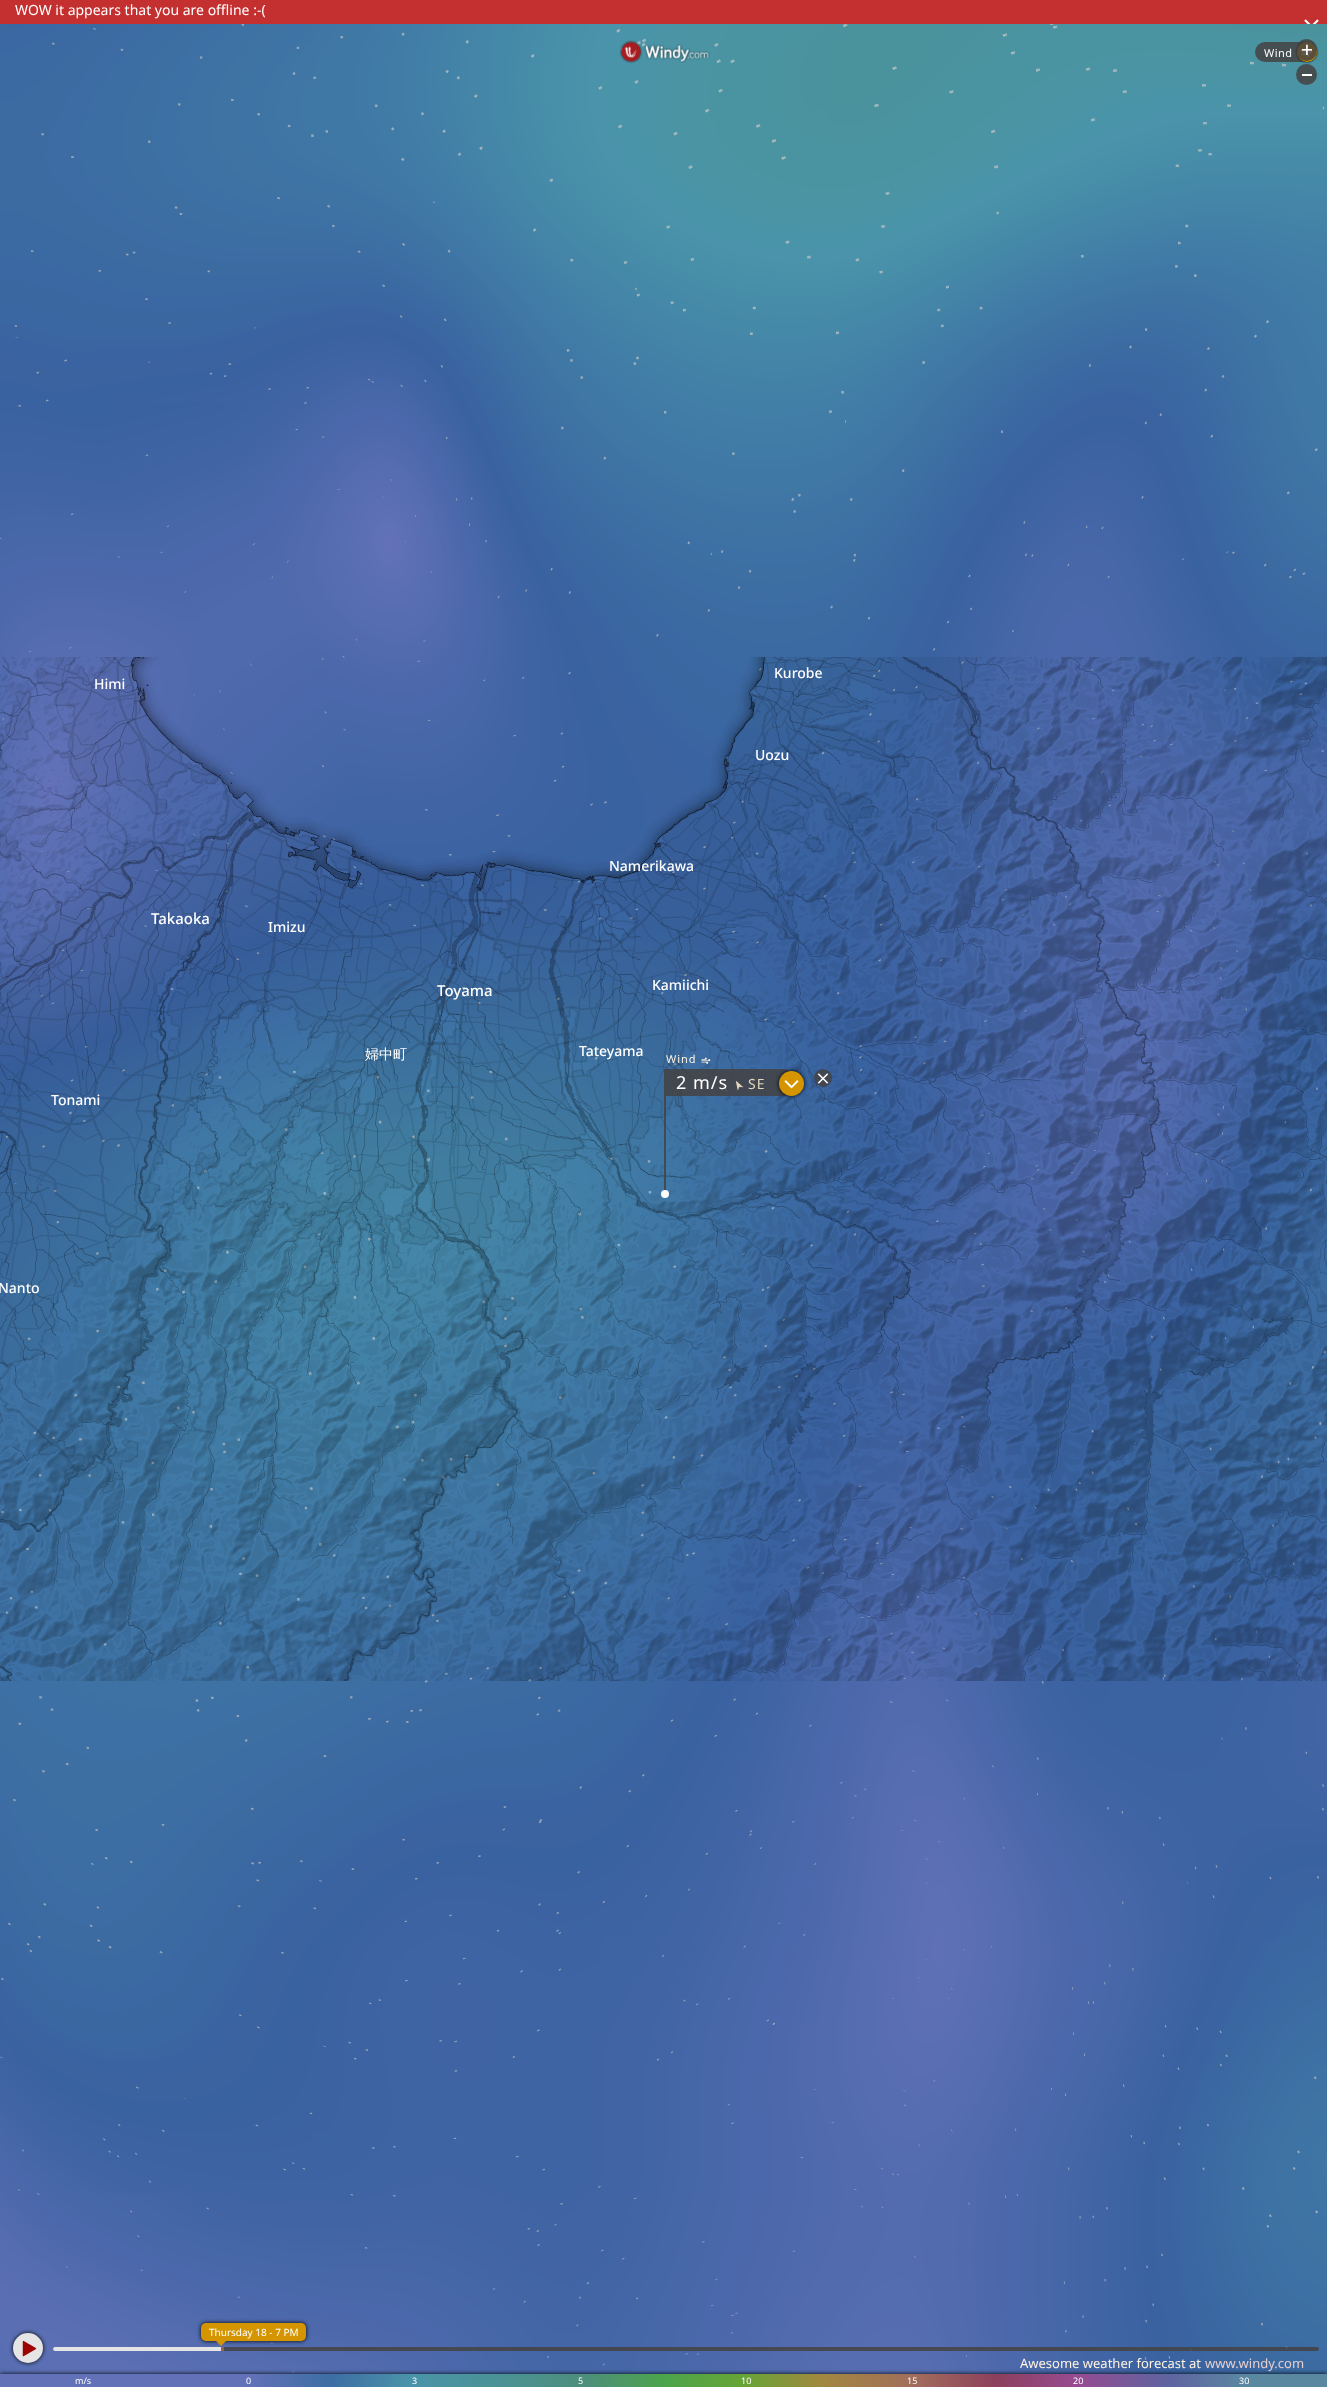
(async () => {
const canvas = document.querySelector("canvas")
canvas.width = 1327
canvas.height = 2387
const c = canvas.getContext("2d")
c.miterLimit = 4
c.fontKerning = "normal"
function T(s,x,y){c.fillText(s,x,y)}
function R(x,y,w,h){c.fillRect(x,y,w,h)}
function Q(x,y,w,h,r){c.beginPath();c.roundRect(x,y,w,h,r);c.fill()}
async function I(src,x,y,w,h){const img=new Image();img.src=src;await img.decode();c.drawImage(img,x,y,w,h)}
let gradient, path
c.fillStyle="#fff"
R(0,0,1327,2387)
c.fillStyle="#c42f2f"
R(0,0,1327,24)
c.font="14px Noto Sans"
c.fillStyle="#fff"
T("WOW it appears that you are offline :-(",15,15)
await I("1.png",1304,19,15,5)
await I("9.png",569,24,256,121)
await I("6.png",0,24,57,121)
await I("7.png",57,24,256,121)
await I("8.png",313,24,256,121)
await I("10.png",825,24,256,121)
await I("11.png",1081,24,246,121)
await I("12.png",0,145,57,256)
await I("13.png",57,145,256,256)
await I("14.png",313,145,256,256)
await I("15.png",569,145,256,256)
await I("16.png",825,145,256,256)
await I("17.png",1081,145,246,256)
await I("18.png",0,401,57,256)
await I("19.png",57,401,256,256)
await I("20.png",313,401,256,256)
await I("21.png",569,401,256,256)
await I("22.png",825,401,256,256)
await I("23.png",1081,401,246,256)
await I("24.png",0,657,57,256)
await I("25.png",57,657,256,256)
await I("26.png",313,657,256,256)
await I("27.png",569,657,256,256)
await I("28.png",825,657,256,256)
await I("29.png",1081,657,246,256)
await I("30.png",0,913,57,256)
await I("31.png",57,913,256,256)
await I("32.png",313,913,256,256)
await I("33.png",569,913,256,256)
await I("34.png",825,913,256,256)
await I("35.png",1081,913,246,256)
await I("36.png",0,1169,57,256)
await I("37.png",57,1169,256,256)
await I("38.png",313,1169,256,256)
await I("39.png",569,1169,256,256)
await I("40.png",825,1169,256,256)
await I("41.png",1081,1169,246,256)
await I("42.png",0,1425,57,256)
await I("43.png",57,1425,256,256)
await I("44.png",313,1425,256,256)
await I("45.png",569,1425,256,256)
await I("46.png",825,1425,256,256)
await I("47.png",1081,1425,246,256)
await I("48.png",0,1681,57,256)
await I("49.png",57,1681,256,256)
await I("50.png",313,1681,256,256)
await I("51.png",569,1681,256,256)
await I("52.png",825,1681,256,256)
await I("53.png",1081,1681,246,256)
await I("54.png",0,1937,57,256)
await I("55.png",57,1937,256,256)
await I("56.png",313,1937,256,256)
await I("57.png",569,1937,256,256)
await I("58.png",825,1937,256,256)
await I("59.png",1081,1937,246,256)
await I("60.png",0,2193,57,181)
await I("61.png",57,2193,256,181)
await I("62.png",313,2193,256,181)
await I("63.png",569,2193,256,181)
await I("64.png",825,2193,256,181)
await I("65.png",1081,2193,246,181)
await I("66.png",0,24,1326,2348)
await I("2.png",619,40,24,24)
await I("3.png",644,44,66,19)
c.fillStyle="#444141d6"
Q(1255,42,62,20,10)
c.letterSpacing="0.5px"
c.font="11px Noto Sans"
c.fillStyle="#fff"
T("Wind",1264,57)
c.fillStyle="#000"
c.filter="blur(1px)"
c.beginPath()
c.roundRect(1297,42,20,20,10)
c.fill()
c.filter="none"
c.fillStyle="#d49500"
c.beginPath()
c.arc(1307,52,10,0,7)
c.fill()
await I("4.png",1301,50,11,7)
c.fillStyle="#444141d6"
Q(1296,39,21,22,10.5)
await I("5.png",1301,44,12,11)
c.beginPath()
c.arc(1306.5,74.5,10.5,0,7)
c.fill()
c.fillStyle="#fff"
R(1302,74,10,2)
await I("67.png",0,657,57,256)
await I("68.png",57,657,256,256)
await I("69.png",313,822,256,91)
await I("70.png",569,657,256,256)
await I("71.png",825,657,256,256)
await I("72.png",1081,657,246,256)
await I("73.png",0,913,57,256)
await I("74.png",57,913,256,256)
await I("75.png",313,913,256,256)
await I("76.png",569,913,256,256)
await I("77.png",825,913,256,256)
await I("78.png",1081,913,246,256)
await I("79.png",0,1169,57,256)
await I("80.png",57,1169,256,256)
await I("81.png",313,1169,256,256)
await I("82.png",569,1169,256,256)
await I("83.png",825,1169,256,256)
await I("84.png",1081,1169,246,256)
await I("85.png",0,1425,57,256)
await I("86.png",57,1425,256,256)
await I("87.png",313,1425,256,256)
await I("88.png",569,1425,256,256)
await I("89.png",825,1425,256,256)
await I("90.png",1081,1425,246,256)
c.letterSpacing="0px"
c.font="500 14px Noto Sans"
T("Himi",94,689)
T("Kurobe",774,678)
T("Uozu",755,760)
T("Namerikawa",609,871)
c.font="500 15px Noto Sans"
T("Takaoka",151,924)
c.font="500 14px Noto Sans"
T("Imizu",268,932)
T("Tonami",51,1105)
c.font="500 15px Noto Sans"
T("Toyama",437,996)
c.font="500 14px WenQuanYi Zen Hei"
T("婦中町",365,1059)
c.font="500 14px Noto Sans"
T("Kamiichi",652,990)
T("Tateyama",579,1056)
T("Nanto",-2,1293)
c.fillStyle="#444141d6"
R(664,1069,2,125)
c.fillStyle="#fff"
c.beginPath()
c.arc(665,1194,4,0,7)
c.fill()
c.fillStyle="#444141d6"
c.beginPath()
c.roundRect(666,1069,130,27,[0,13.5,13.5,0])
c.fill()
c.letterSpacing="1px"
c.font="11px Noto Sans"
c.fillStyle="#fff3e1"
T("Wind",666,1063)
await I("91.png",701,1057,10,7)
c.font="18px Noto Sans"
c.fillStyle="#fff"
T("2 m/s",676,1089)
await I("92.png",735,1081,9,10)
c.font="14px Noto Sans"
c.fillStyle="#e4d5bd"
T("SE",748,1089)
c.fillStyle="#000"
c.filter="blur(2px)"
c.beginPath()
c.roundRect(779,1071,25,25,12.5)
c.fill()
c.filter="none"
c.fillStyle="#d49500"
c.beginPath()
c.arc(791.5,1083.5,12.5,0,7)
c.fill()
await I("93.png",784,1080,15,9)
c.fillStyle="#444141d6"
c.beginPath()
c.arc(823,1078,9,0,7)
c.fill()
await I("94.png",817,1073,12,11)
c.fillStyle="#000"
c.filter="blur(2px)"
c.beginPath()
c.roundRect(13,2333,30,30,15)
c.fill()
c.filter="none"
c.fillStyle="#e5e5e5"
c.beginPath()
c.arc(28,2348,15,0,7)
c.fill()
await I("95.png",22,2340,15,17)
c.fillStyle="#000"
c.filter="blur(2px)"
c.beginPath()
c.roundRect(201,2323,105,18,5)
c.fill()
c.filter="none"
c.fillStyle="#d49500"
Q(201,2323,105,18,5)
c.letterSpacing="0px"
c.font="10px Noto Sans"
c.fillStyle="#fff"
T("Thursday 18 - 7 PM",209,2336)
c.fillStyle="#d49500"
path = new Path2D("M216 2341h10l-5 5z")
c.fill(path)
c.fillStyle="#444141d6"
Q(53,2347,1266,4,2)
c.fillStyle="#e5e5e5"
c.beginPath()
c.roundRect(53,2347,168,4,[2,0,0,2])
c.fill()
c.fillStyle="#946051"
R(221,2347,3,4)
c.fillStyle="#000"
c.filter="blur(2px)"
c.beginPath()
c.rect(0,2374,1327,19)
c.fill()
c.filter="none"
c.font="13px Noto Sans"
c.fillStyle="#fff3e1"
T("Awesome weather forecast at",1020,2368)
c.fillStyle="#e6cece"
T("www.windy.com",1205,2368)
gradient = c.createLinearGradient(0,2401,1327,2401)
gradient.addColorStop(0,"#6271b8")
gradient.addColorStop(.19,"#6271b8")
gradient.addColorStop(.25,"#3d6ea3")
gradient.addColorStop(.31,"#4a94aa")
gradient.addColorStop(.38,"#4a9294")
gradient.addColorStop(.44,"#4d8e7c")
gradient.addColorStop(.5,"#4ca44c")
gradient.addColorStop(.56,"#67a436")
gradient.addColorStop(.62,"#a28740")
gradient.addColorStop(.69,"#a26d5c")
gradient.addColorStop(.75,"#8d3f5c")
gradient.addColorStop(.81,"#974b91")
gradient.addColorStop(.88,"#5f64a0")
gradient.addColorStop(.94,"#5b88a1")
gradient.addColorStop(1,"#5b88a1")
c.fillStyle = gradient
R(0,2374,1327,13)
c.font="9px Noto Sans"
c.fillStyle="#fff"
T("m/s",75,2384)
T("0",246,2384)
T("3",412,2384)
T("5",578,2384)
T("10",741,2384)
T("15",907,2384)
T("20",1073,2384)
T("30",1239,2384)
})()
